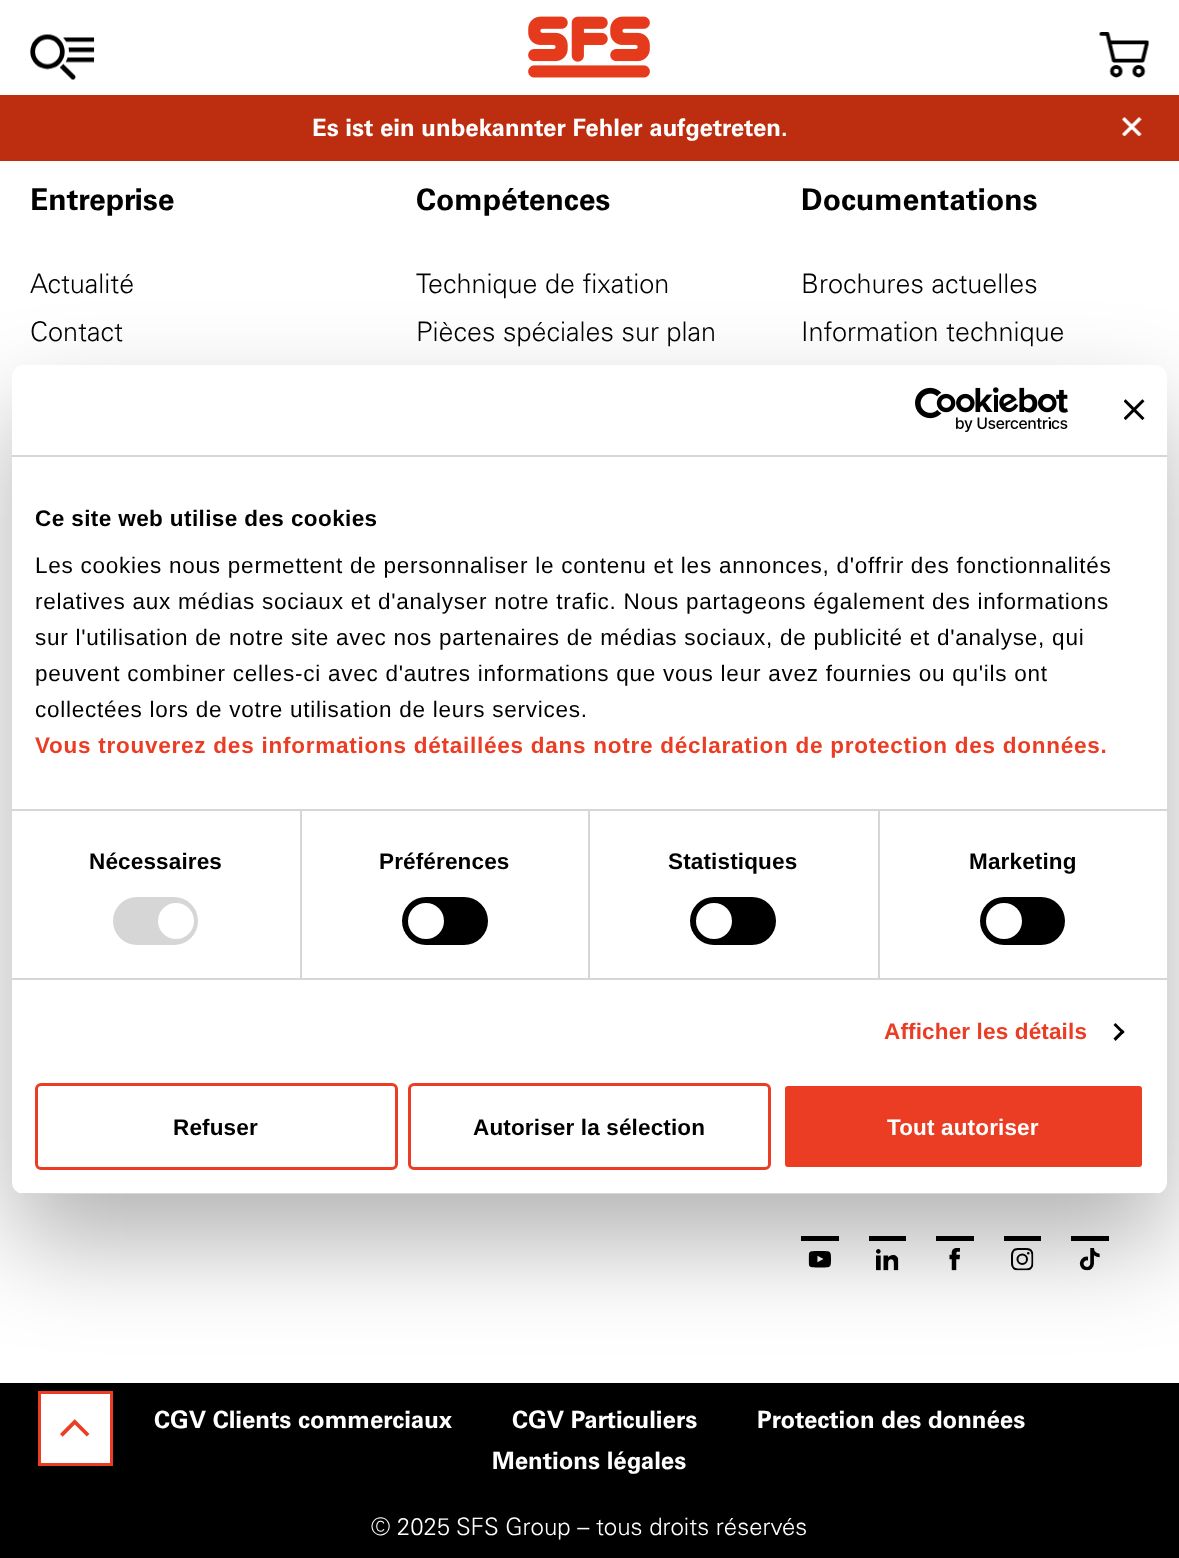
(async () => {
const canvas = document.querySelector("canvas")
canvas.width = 1179
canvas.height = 1558
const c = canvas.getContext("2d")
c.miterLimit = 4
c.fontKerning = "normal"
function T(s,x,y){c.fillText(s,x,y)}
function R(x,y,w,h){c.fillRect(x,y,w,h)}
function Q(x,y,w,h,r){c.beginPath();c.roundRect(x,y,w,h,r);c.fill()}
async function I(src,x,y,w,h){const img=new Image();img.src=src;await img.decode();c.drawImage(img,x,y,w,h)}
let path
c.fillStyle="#fff"
R(0,0,1179,1558)
await I("1.png",30,34,65,46)
await I("2.png",528,16,122,62)
await I("3.png",1099,32,51,46)
c.fillStyle="#bd2e10"
R(0,95,1179,66)
c.font="bold 24px Univers"
c.fillStyle="#fff"
T("Es ist ein unbekannter Fehler aufgetreten.",312,136)
await I("4.png",1121,117,21,20)
c.fillStyle="#000"
R(0,1383,1179,175)
c.fillStyle="#fff"
c.beginPath()
c.rect(39.5,1392.5,72,72)
c.fill()
c.strokeStyle="#eb3c24"
c.lineWidth=3
c.stroke()
await I("5.png",60,1419,30,18)
c.font="bold 30px Univers"
c.fillStyle="#000"
T("Entreprise",30,210)
c.font="300 27px Univers"
T("Actualité",30,293)
T("Contact",30,341)
c.font="bold 30px Univers"
T("Compétences",416,210)
c.font="300 27px Univers"
T("Technique de fixation",416,293)
T("Pièces spéciales sur plan",416,341)
c.font="bold 30px Univers"
T("Documentations",801,210)
c.font="300 27px Univers"
T("Brochures actuelles",801,293)
T("Information technique",801,341)
R(801,1236,38,5)
await I("6.png",808,1251,23,17)
R(869,1236,37,5)
await I("7.png",876,1249,23,22)
R(936,1236,38,5)
await I("8.png",949,1248,11,23)
R(1004,1236,37,5)
await I("9.png",1011,1248,23,23)
R(1071,1236,38,5)
await I("10.png",1079,1248,21,23)
c.font="bold 24px Univers"
c.fillStyle="#fff"
T("CGV Clients commerciaux",154,1428)
T("CGV Particuliers",512,1428)
T("Protection des données",757,1428)
T("Mentions légales",492,1469)
c.font="300 24px Univers"
T("© 2025 SFS Group – tous droits réservés",371,1535)
c.fillStyle="#0000004d"
c.filter="blur(51px)"
c.beginPath()
c.roundRect(12,413,1155,829,12)
c.fill()
c.filter="none"
c.fillStyle="#fff"
Q(12,365,1155,829,12)
c.fillStyle="#d6d6d6"
R(12,455,1155,2)
await I("11.png",915,387,153,45)
await I("12.png",1124,399,21,21)
R(300,810,2,168)
R(588,810,2,168)
R(878,810,2,168)
R(12,809,1155,2)
c.letterSpacing="0.4px"
c.font="bold 22.5px Liberation Sans"
c.fillStyle="#000"
T("Ce site web utilise des cookies",35,526)
c.letterSpacing="0.75px"
c.font="22.5px Liberation Sans"
T("Les cookies nous permettent de personnaliser le contenu et les annonces, d'offrir des fonctionnalités",35,573)
T("relatives aux médias sociaux et d'analyser notre trafic. Nous partageons également des informations",35,609)
T("sur l'utilisation de notre site avec nos partenaires de médias sociaux, de publicité et d'analyse, qui",35,645)
T("peuvent combiner celles-ci avec d'autres informations que vous leur avez fournies ou qu'ils ont",35,681)
T("collectées lors de votre utilisation de leurs services.",35,717)
c.font="bold 22.5px Liberation Sans"
c.fillStyle="#eb3c24"
T("Vous trouverez des informations détaillées dans notre déclaration de protection des données.",35,753)
c.fillStyle="#d6d6d6"
R(12,978,1155,2)
c.letterSpacing="0.15px"
c.fillStyle="#000"
T("Nécessaires",89,869)
c.fillStyle="#d6d6d6"
Q(113,897,85,48,24)
c.fillStyle="#fff"
c.beginPath()
c.arc(176,921,18,0,7)
c.fill()
c.fillStyle="#000"
T("Préférences",379,869)
Q(402,897,86,48,24)
c.fillStyle="#fff"
c.beginPath()
c.arc(426,921,18,0,7)
c.fill()
c.fillStyle="#000"
T("Statistiques",668,869)
Q(690,897,86,48,24)
c.fillStyle="#fff"
c.beginPath()
c.arc(714,921,18,0,7)
c.fill()
c.fillStyle="#000"
T("Marketing",969,869)
Q(980,897,85,48,24)
c.fillStyle="#fff"
c.beginPath()
c.arc(1004,921,18,0,7)
c.fill()
c.fillStyle="#eb3c24"
T("Afficher les détails",884,1039)
c.fillStyle="#000"
path = new Path2D("M1115.5 1023l9 9l-2 2l-9-9z")
c.fill(path)
path = new Path2D("M1122.5 1029.5l2 2.5l-9 9l-2-2.5z")
c.fill(path)
c.save()
c.beginPath()
c.roundRect(12,365,1155,829,12)
c.clip()
c.fillStyle="#d6d6d6"
R(12,1193,1155,1)
c.restore()
c.beginPath()
c.roundRect(36.5,1084.5,360,84,4.5)
c.stroke()
T("Refuser",173,1135)
c.beginPath()
c.roundRect(409.5,1084.5,360,84,4.5)
c.stroke()
T("Autoriser la sélection",473,1135)
c.fillStyle="#eb3c24"
c.beginPath()
c.roundRect(783.5,1084.5,360,84,4.5)
c.fill()
c.strokeStyle="#fff"
c.stroke()
c.fillStyle="#fff"
T("Tout autoriser",887,1135)
})()
